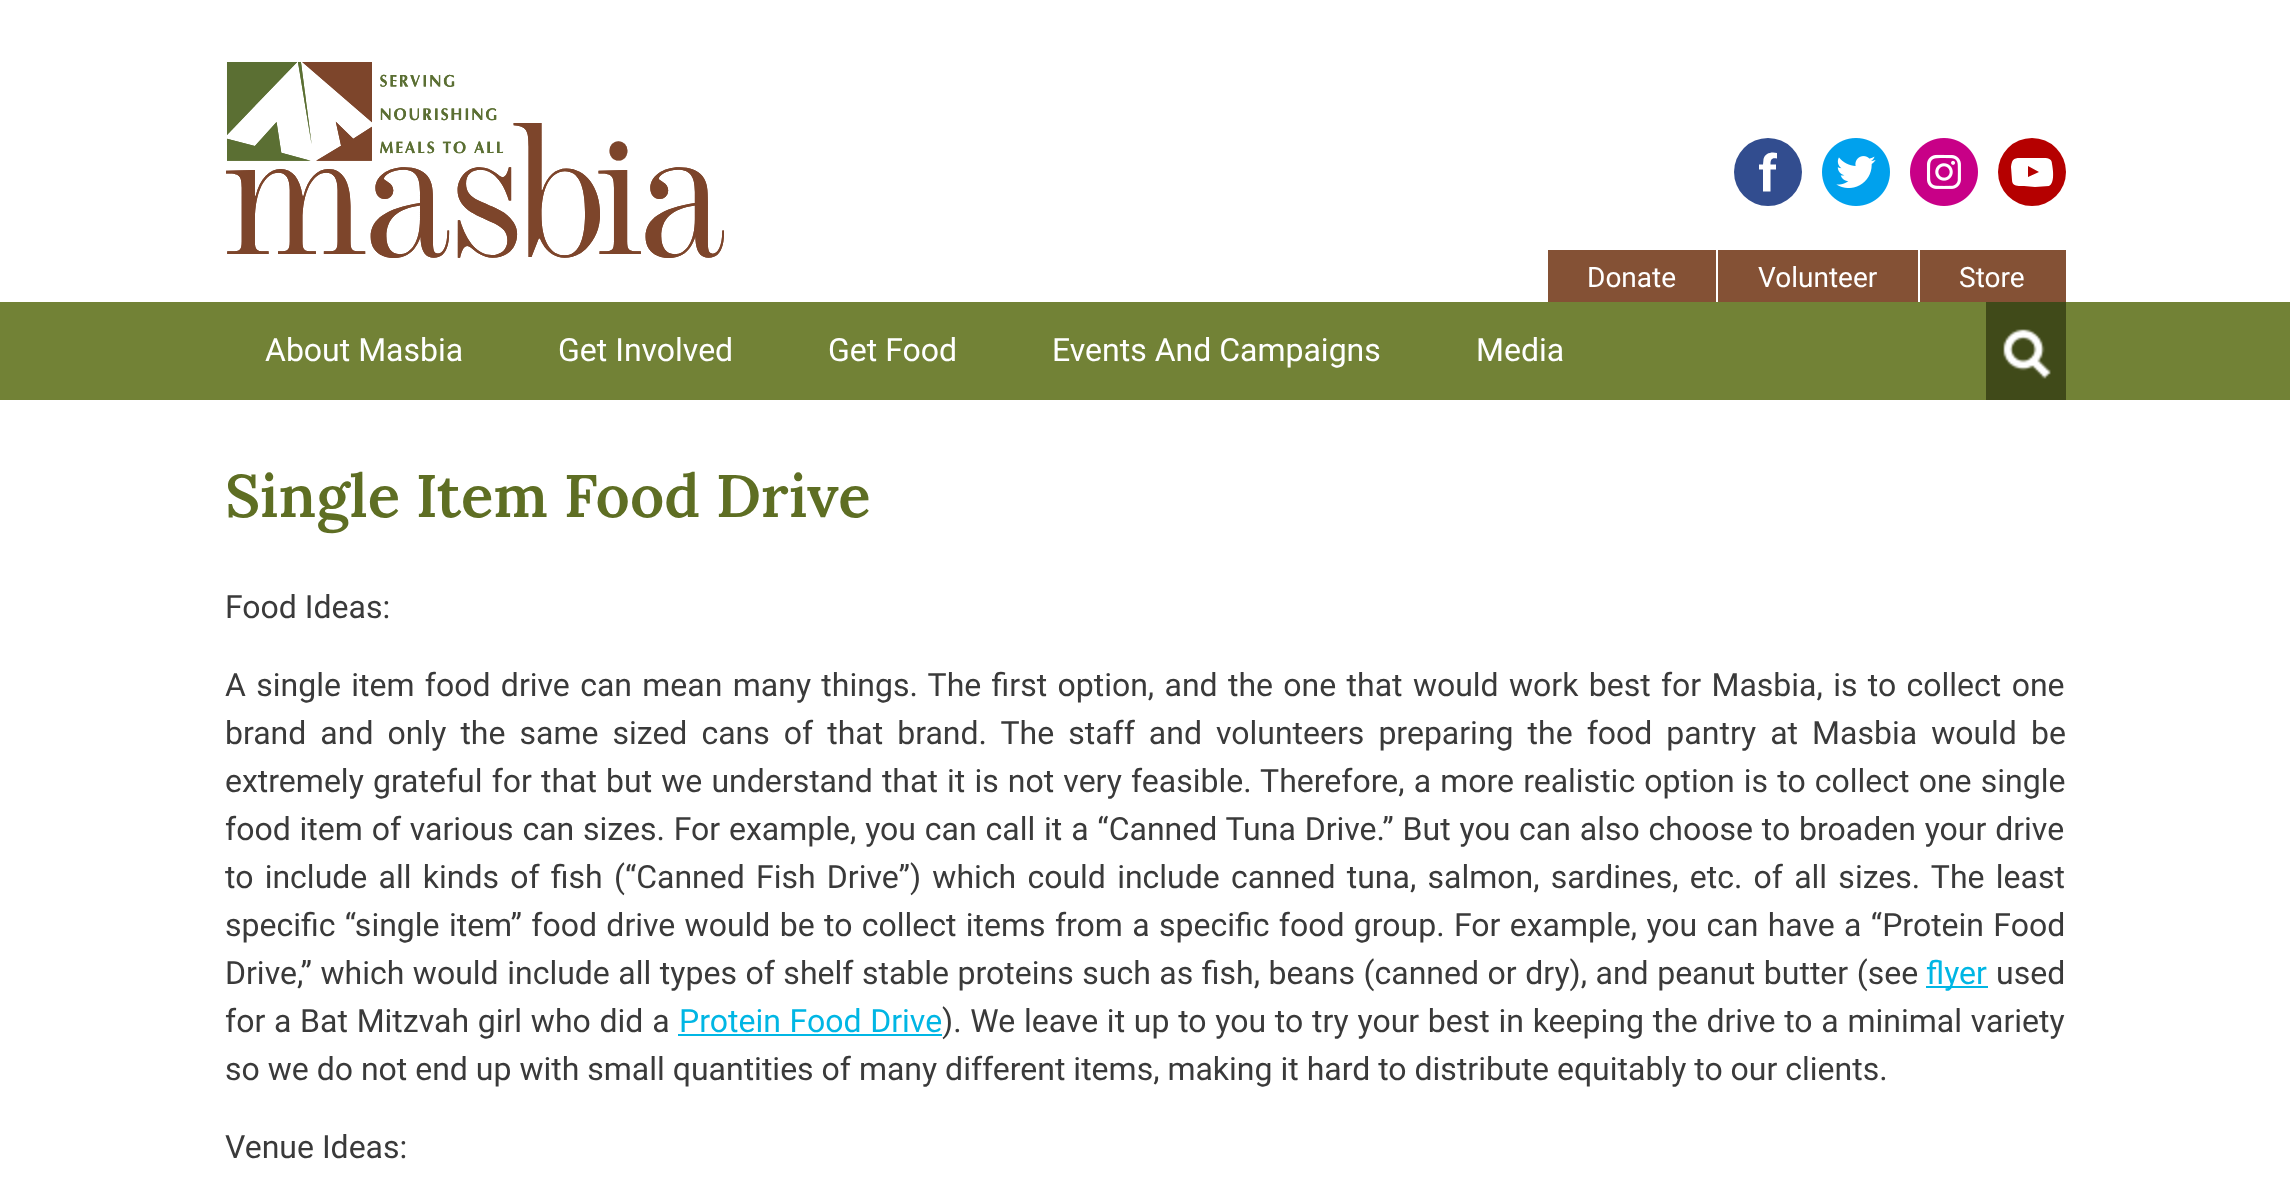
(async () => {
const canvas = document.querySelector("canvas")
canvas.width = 2290
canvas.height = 1197
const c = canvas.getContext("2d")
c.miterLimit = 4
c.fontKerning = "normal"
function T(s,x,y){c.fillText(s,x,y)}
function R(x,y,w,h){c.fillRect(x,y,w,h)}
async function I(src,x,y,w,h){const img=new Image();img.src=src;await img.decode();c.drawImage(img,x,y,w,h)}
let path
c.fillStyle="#fff"
R(0,0,2290,1197)
await I("1.png",226,62,498,196)
c.fillStyle="#324d8f"
c.beginPath()
c.arc(1768,172,34,0,7)
c.fill()
c.fillStyle="#fff"
path = new Path2D("M1763 191.5v-22h-4v-5h4l.5-5.5c1.5-6 8-7.5 13.5-6v5.5c-5.5-1-6.5 1-6.5 6h5.5v5h-5.5v22z")
c.fill(path)
await I("2.png",1822,138,68,68)
await I("3.png",1910,138,68,68)
c.fillStyle="#b50000"
c.beginPath()
c.arc(2032,172,34,0,7)
c.fill()
c.fillStyle="#fff"
path = new Path2D("M2052 164c0-6-5-6-10-6h-22c-7 0-8 2-9 9l1 13c0 7 7 6 12 6l11 1l14-1c6-3 4-17 3-22zm-24 13v-11l11 6z")
c.fill(path)
c.fillStyle="#845135"
R(1548,250,168,52)
c.font="28px Roboto"
c.fillStyle="#fff"
T("Donate",1587,287)
c.fillStyle="#845135"
R(1718,250,200,52)
c.fillStyle="#fff"
T("Volunteer",1758,287)
c.fillStyle="#845135"
R(1920,250,146,52)
c.fillStyle="#fff"
T("Store",1959,287)
c.fillStyle="#728236"
R(0,302,2290,98)
c.font="32px Roboto"
c.fillStyle="#fff"
T("About Masbia",265,361)
T("Get Involved",558,361)
T("Get Food",828,361)
T("Events And Campaigns",1052,361)
T("Media",1476,361)
c.fillStyle="#404a19"
R(1986,302,80,98)
await I("4.png",2003,329,48,50)
c.font="600 60px Lora"
c.fillStyle="#5e6e23"
T("Single Item Food Drive",225,517)
c.font="32px Roboto"
c.fillStyle="#3a3a3a"
T("Food Ideas:",225,618)
c.wordSpacing="2.4px"
T("A single item food drive can mean many things. The first option, and the one that would work best for Masbia, is to collect one",225,696)
c.wordSpacing="6.1px"
T("brand and only the same sized cans of that brand. The staff and volunteers preparing the food pantry at Masbia would be",225,744)
c.wordSpacing="1.2px"
T("extremely grateful for that but we understand that it is not very feasible. Therefore, a more realistic option is to collect one single",225,792)
c.wordSpacing="0.9px"
T("food item of various can sizes. For example, you can call it a “Canned Tuna Drive.” But you can also choose to broaden your drive",225,840)
c.wordSpacing="3.3px"
T("to include all kinds of fish (“Canned Fish Drive”) which could include canned tuna, salmon, sardines, etc. of all sizes. The least",225,888)
c.wordSpacing="1.4px"
T("specific “single item” food drive would be to collect items from a specific food group. For example, you can have a “Protein Food",225,936)
c.wordSpacing="0.6px"
T("Drive,” which would include all types of shelf stable proteins such as fish, beans (canned or dry), and peanut butter (see",225,984)
c.fillStyle="#00b6e4"
R(1926,986,62,2)
c.wordSpacing="0px"
T("flyer",1926,984)
c.fillStyle="#3a3a3a"
T("used",1996,984)
c.wordSpacing="0.8px"
T("for a Bat Mitzvah girl who did a",225,1032)
c.fillStyle="#00b6e4"
T("Protein Food Drive",679,1032)
R(678,1034,264,2)
c.fillStyle="#3a3a3a"
T("). We leave it up to you to try your best in keeping the drive to a minimal variety",942,1032)
c.wordSpacing="0px"
T("so we do not end up with small quantities of many different items, making it hard to distribute equitably to our clients.",225,1080)
T("Venue Ideas:",225,1158)
})()
